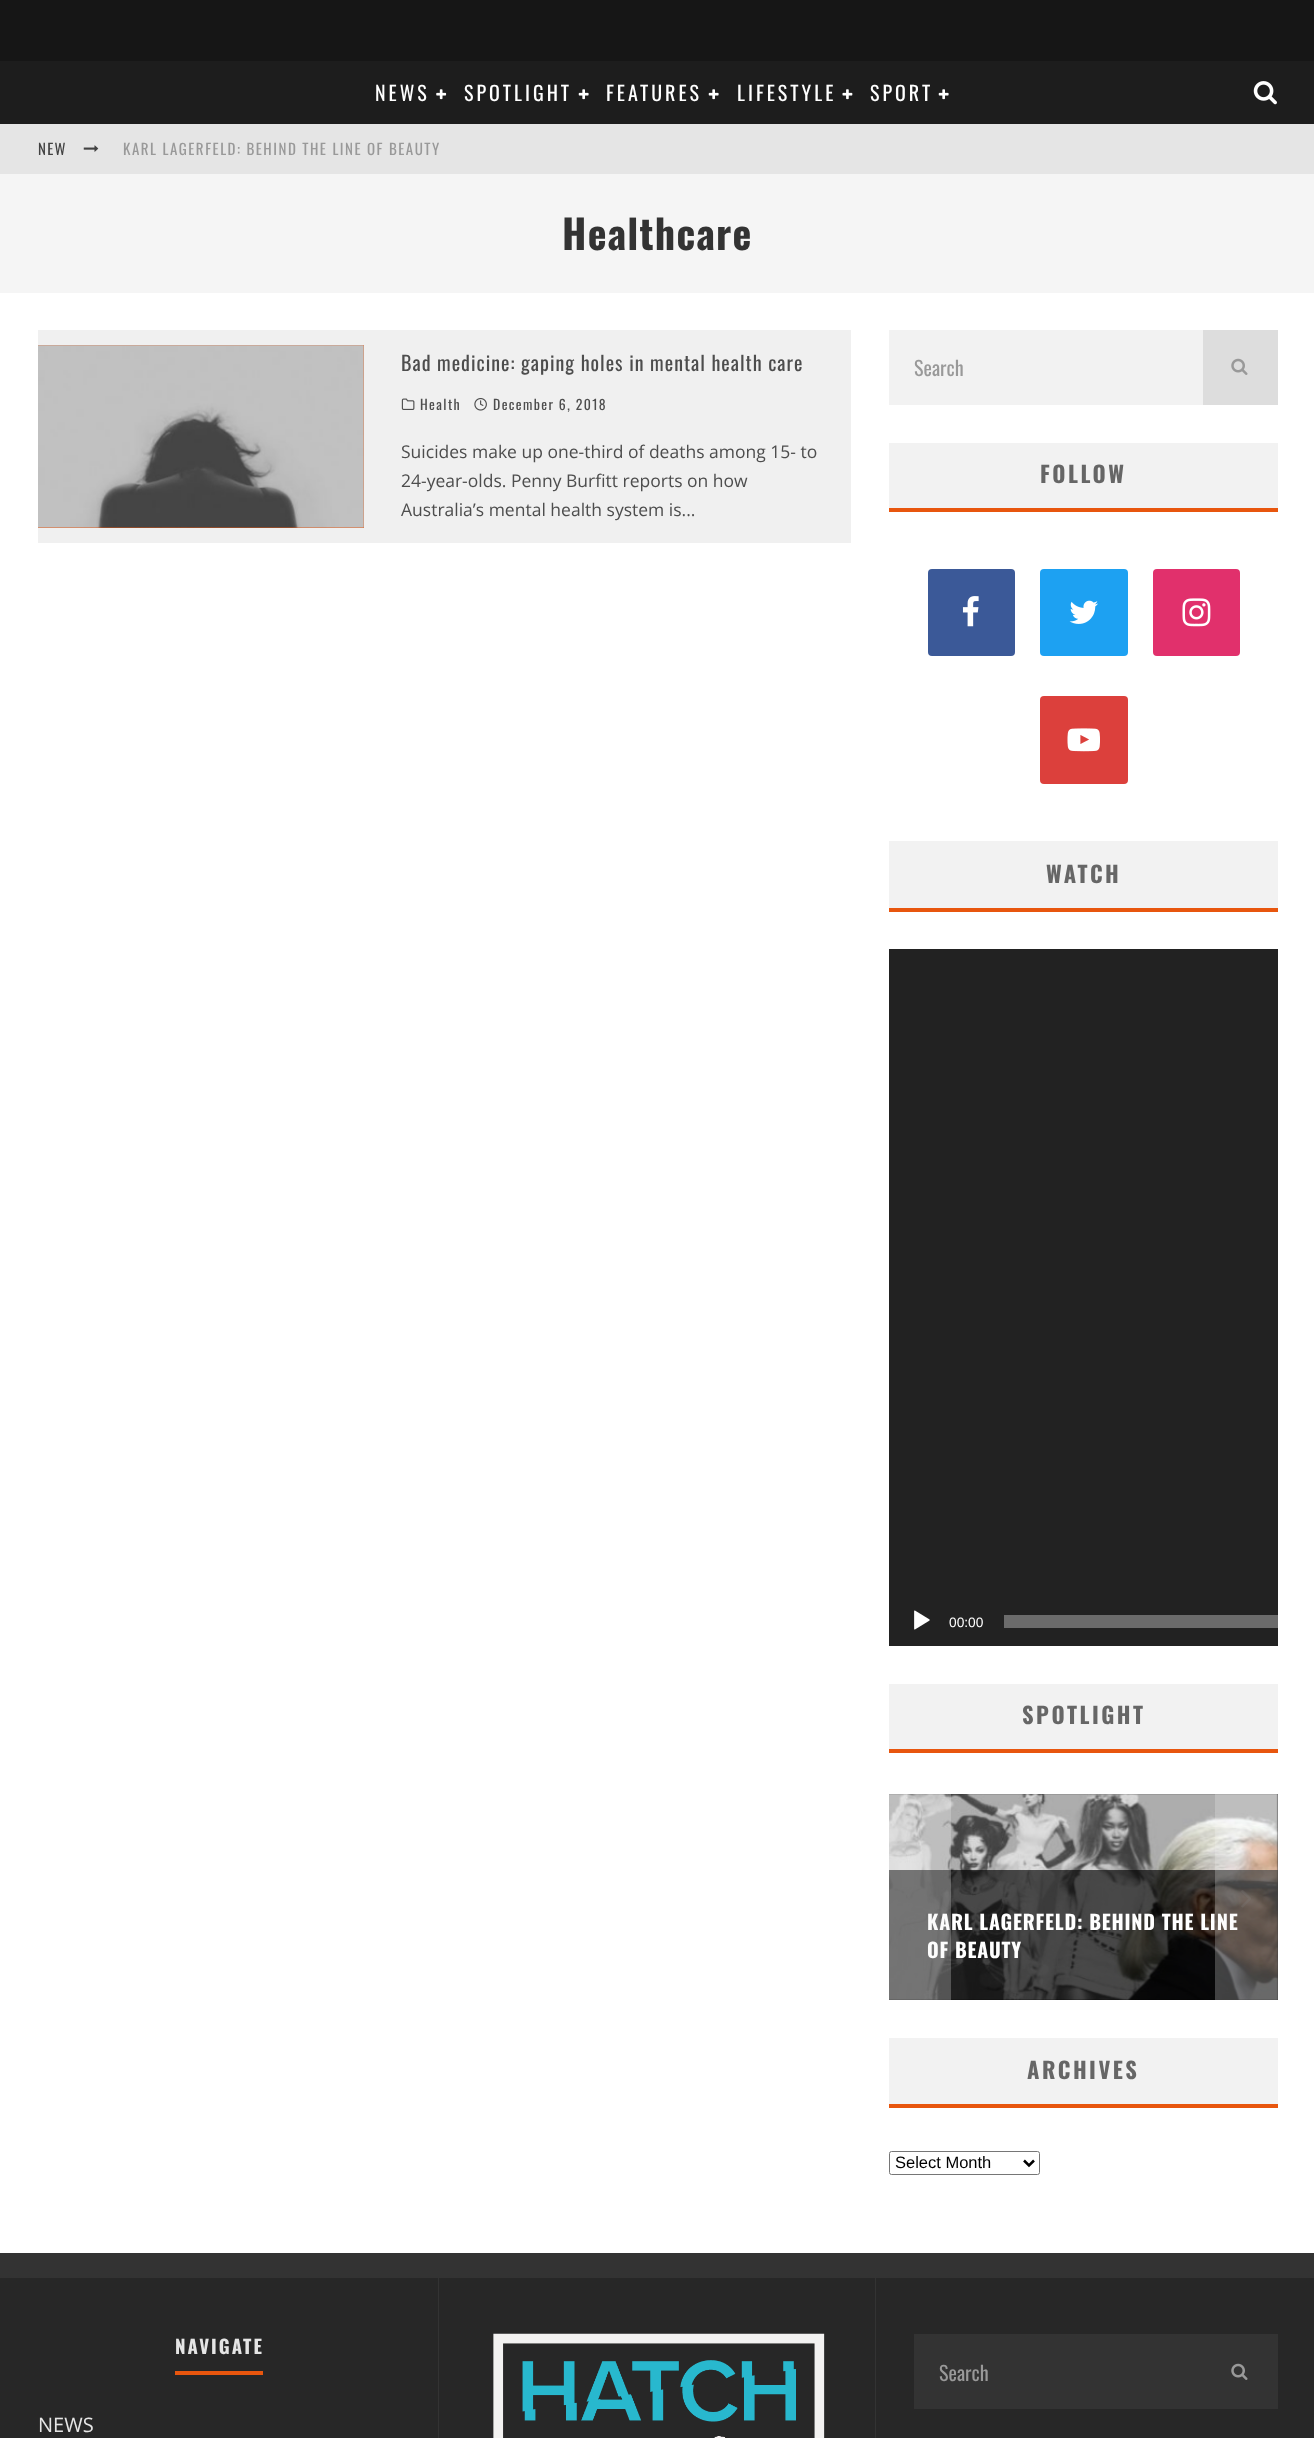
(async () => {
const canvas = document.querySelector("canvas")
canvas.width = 1314
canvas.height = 2438
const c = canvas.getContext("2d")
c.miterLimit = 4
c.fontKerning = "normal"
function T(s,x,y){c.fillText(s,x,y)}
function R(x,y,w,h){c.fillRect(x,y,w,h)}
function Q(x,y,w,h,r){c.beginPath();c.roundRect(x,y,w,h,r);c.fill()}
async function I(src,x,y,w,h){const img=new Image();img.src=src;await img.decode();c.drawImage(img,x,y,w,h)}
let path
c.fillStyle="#fff"
R(0,0,1314,2438)
c.fillStyle="#161616"
R(0,0,1314,61)
c.fillStyle="#1d1d1d"
R(0,61,1314,63)
c.letterSpacing="3px"
c.font="20px Oswald"
c.fillStyle="#fff"
T("NEWS",375,101)
await I("1.png",436,89,11,11)
T("SPOTLIGHT",464,101)
await I("2.png",578,89,11,11)
T("FEATURES",606,101)
await I("2.png",708,89,11,11)
T("LIFESTYLE",737,101)
await I("3.png",842,89,11,11)
T("SPORT",870,101)
await I("2.png",938,89,11,11)
await I("4.png",1253,81,24,24)
c.fillStyle="#e5e5e5"
R(0,124,1314,50)
c.letterSpacing="1.25px"
c.font="15px Oswald"
c.fillStyle="#424242"
T("NEW",38,155)
await I("5.png",83,145,16,7)
c.letterSpacing="1.5px"
c.fillStyle="#999"
T("KARL LAGERFELD: BEHIND THE LINE OF BEAUTY",123,155)
c.fillStyle="#f5f5f5"
R(0,174,1314,119)
c.letterSpacing="1.25px"
c.font="bold 40px Oswald"
c.fillStyle="#333"
T("Healthcare",562,250)
c.fillStyle="#f0f0f0"
R(38,330,813,213)
c.fillStyle="#e8560e"
R(38,345,326,183)
await I("6.png",38,345,326,183)
c.letterSpacing="1px"
c.font="20px Oswald"
c.fillStyle="#4d4d4d"
T("Bad medicine: gaping holes in mental health care",401,371)
await I("7.png",401,398,14,12)
c.letterSpacing="1.4px"
c.font="13.75px Oswald"
T("Health",420,410)
await I("8.png",474,398,13,13)
T("December 6, 2018",493,410)
c.letterSpacing="0px"
c.font="17.5px Open Sans"
T("Suicides make up one-third of deaths among 15- to",401,458)
T("24-year-olds. Penny Burfitt reports on how",401,487)
T("Australia’s mental health system is...",401,516)
c.fillStyle="#f2f2f2"
R(889,330,314,75)
c.font="20px Oswald"
c.fillStyle="#999"
T("Search",914,376)
c.fillStyle="#ddd"
R(1203,330,75,75)
await I("9.png",1231,358,17,17)
c.fillStyle="#f2f2f2"
R(889,443,389,65)
c.fillStyle="#e8560e"
R(889,508,389,4)
c.letterSpacing="2.5px"
c.font="bold 22.5px Oswald"
c.fillStyle="#666"
T("FOLLOW",1040,483)
c.fillStyle="#3b5998"
Q(928,569,87,87,4)
await I("10.png",962,596,17,31)
c.fillStyle="#1da1f2"
Q(1040,569,88,87,4)
await I("11.png",1069,600,29,24)
c.fillStyle="#e1306c"
Q(1153,569,87,87,4)
await I("12.png",1182,598,29,29)
c.fillStyle="#dc403c"
Q(1040,696,88,88,4)
await I("13.png",1067,728,33,24)
c.fillStyle="#f2f2f2"
R(889,841,389,67)
c.fillStyle="#e8560e"
R(889,908,389,4)
c.fillStyle="#666"
T("WATCH",1046,883)
c.fillStyle="#222"
R(889,949,389,697)
await I("14.png",914,1610,16,20)
c.letterSpacing="0px"
c.font="13.75px Liberation Sans"
c.fillStyle="#fff"
T("00:00",949,1627)
c.fillStyle="#6b6b6b"
R(1004,1615,274,13)
c.fillStyle="#f2f2f2"
R(889,1684,389,65)
c.fillStyle="#e8560e"
R(889,1749,389,4)
c.letterSpacing="2.5px"
c.font="bold 22.5px Oswald"
c.fillStyle="#666"
T("SPOTLIGHT",1022,1724)
c.fillStyle="#000"
R(889,1794,389,206)
await I("15.png",889,1794,389,206)
c.fillStyle="#00000099"
R(889,1870,389,130)
c.fillStyle="#16161633"
R(889,1870,389,130)
c.letterSpacing="0.8px"
c.font="bold 20px Oswald"
c.fillStyle="#fff"
T("KARL LAGERFELD: BEHIND THE LINE",927,1930)
T("OF BEAUTY",927,1958)
c.fillStyle="#f5f5f540"
R(889,1794,62,206)
R(1215,1794,63,206)
await I("16.png",1241,1890,10,18)
c.fillStyle="#f2f2f2"
R(889,2038,389,66)
c.fillStyle="#e8560e"
R(889,2104,389,4)
c.letterSpacing="2.5px"
c.font="bold 22.5px Oswald"
c.fillStyle="#666"
T("ARCHIVES",1027,2079)
c.beginPath()
c.roundRect(889.5,2151.5,150,23,2)
c.strokeStyle="#767676"
c.stroke()
path = new Path2D("M1024 2160.5l5 5l5-5")
c.strokeStyle="#000"
c.lineWidth=2.5
c.stroke(path)
c.letterSpacing="0px"
c.font="16.5px Liberation Sans"
c.fillStyle="#000"
T("Select Month",895,2168)
c.fillStyle="#333"
R(0,2253,1314,25)
c.fillStyle="#272727"
R(0,2278,1314,160)
c.fillStyle="#333"
R(438,2278,1,160)
c.letterSpacing="2px"
c.font="bold 18.75px Oswald"
c.fillStyle="#e5e5e5"
T("NAVIGATE",175,2354)
c.fillStyle="#e8560e"
R(175,2371,88,4)
c.letterSpacing="0px"
c.font="20px Open Sans"
c.fillStyle="#e5e5e5"
T("NEWS",38,2432)
c.fillStyle="#333"
R(875,2278,1,160)
await I("17.png",493,2333,332,105)
R(914,2334,364,75)
c.font="20px Oswald"
c.fillStyle="#999"
T("Search",939,2381)
await I("18.png",1231,2363,17,17)
})()
